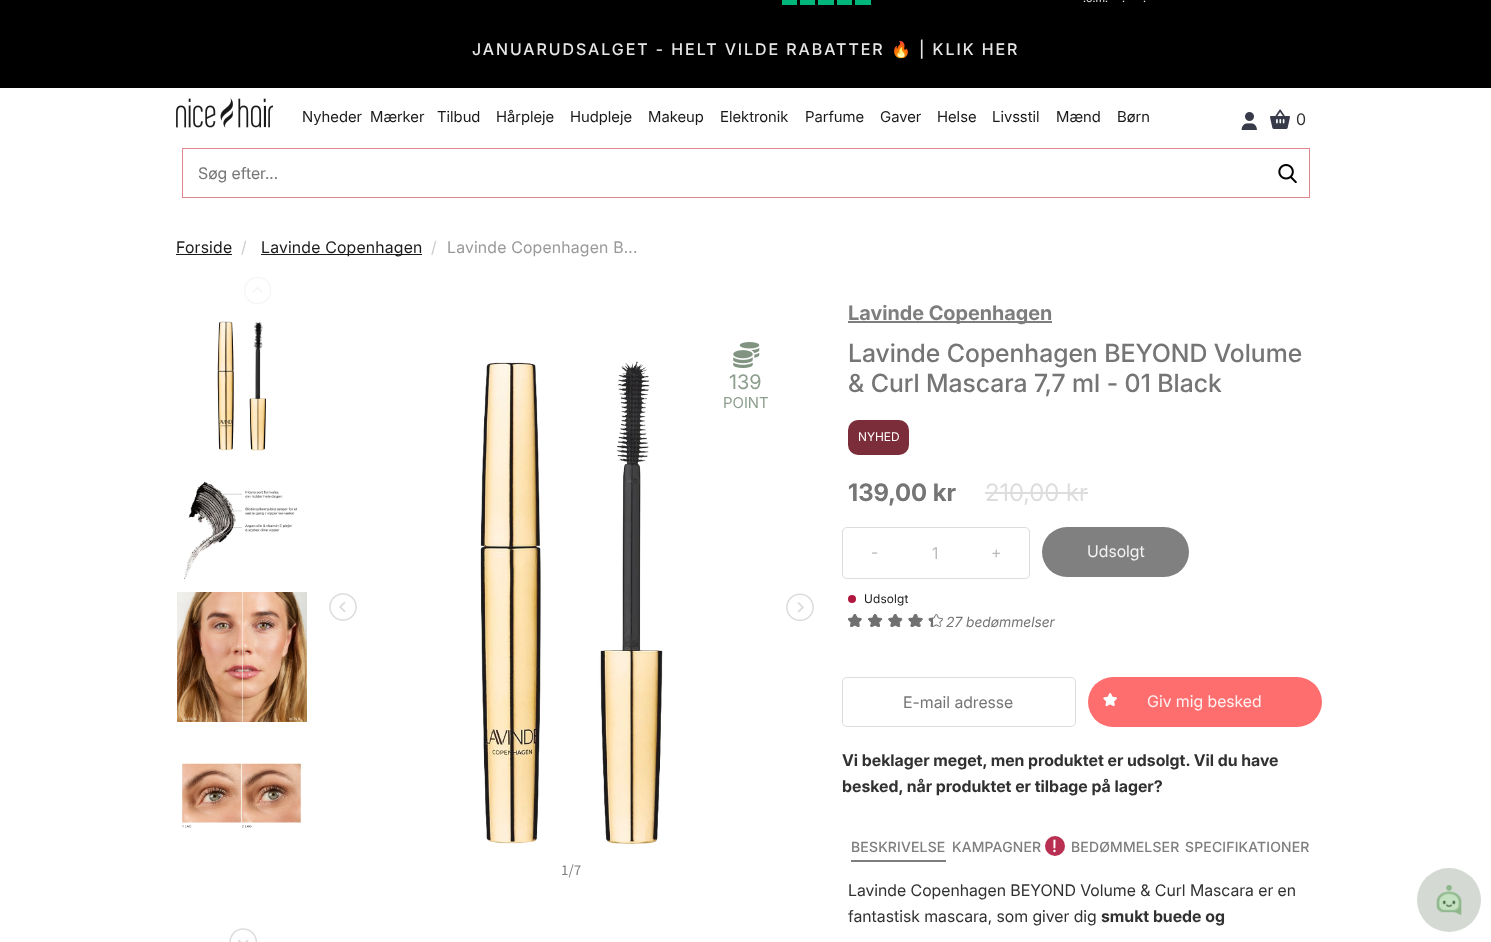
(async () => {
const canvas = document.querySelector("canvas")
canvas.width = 1491
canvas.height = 942
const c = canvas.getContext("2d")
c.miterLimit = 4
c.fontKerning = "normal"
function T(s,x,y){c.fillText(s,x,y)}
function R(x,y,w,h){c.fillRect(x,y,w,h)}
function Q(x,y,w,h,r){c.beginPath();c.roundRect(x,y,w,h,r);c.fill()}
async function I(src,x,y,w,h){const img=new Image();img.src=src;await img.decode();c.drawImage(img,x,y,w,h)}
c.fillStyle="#fff"
R(0,0,1491,942)
c.fillStyle="#000"
R(0,0,1491,10)
c.fillStyle="#00b67a"
R(782,0,15,5)
R(800,0,15,5)
R(818,0,16,5)
R(837,0,15,5)
R(855,0,16,5)
c.font="11px Inter"
c.fillStyle="#e6e6e6"
T(".o.m.",1083,2)
T(".",1122,2)
T(".",1143,2)
c.fillStyle="#000001"
R(0,10,1491,78)
c.letterSpacing="2px"
c.font="500 16px Inter"
c.fillStyle="#e6e6e6"
T("JANUARUDSALGET - HELT VILDE RABATTER",472,55)
c.font="16px Noto Color Emoji"
T("🔥",891,55)
c.font="500 16px Inter"
T("| KLIK HER",919,55)
await I("1.png",176,98,97,30)
c.letterSpacing="0px"
c.font="15px Inter"
c.fillStyle="#1a1a1a"
T("Nyheder",302,122)
T("Mærker",370,122)
T("Tilbud",437,122)
T("Hårpleje",496,122)
T("Hudpleje",570,122)
T("Makeup",648,122)
T("Elektronik",720,122)
T("Parfume",805,122)
T("Gaver",880,122)
T("Helse",937,122)
T("Livsstil",992,122)
T("Mænd",1056,122)
T("Børn",1117,122)
await I("2.png",1241,112,16,18)
await I("3.png",1270,109,20,20)
c.font="16px Inter"
c.fillStyle="#313131"
T("0",1296,125)
await I("4.png",1278,164,19,19)
c.strokeStyle="#e0858c"
c.strokeRect(182.5,148.5,1127,49)
c.fillStyle="#757575"
T("Søg efter...",198,179)
c.letterSpacing="0.2px"
c.fillStyle="#1a1a1a"
T("Forside",176,253)
R(176,254,56,1)
c.fillStyle="#ccc"
T("/",241,253)
c.fillStyle="#1a1a1a"
R(261,254,161,1)
T("Lavinde Copenhagen",261,253)
c.fillStyle="#ccc"
T("/",431,253)
c.fillStyle="#999"
T("Lavinde Copenhagen B...",447,253)
await I("5.png",244,277,27,27)
await I("6.png",217,321,49,130)
await I("7.png",184,481,114,99)
await I("8.png",177,592,130,130)
await I("9.png",182,763,120,65)
await I("10.png",229,928,28,14)
await I("11.png",480,361,183,483)
await I("12.png",733,342,27,26)
c.letterSpacing="0px"
c.font="20px Inter"
c.fillStyle="#8d9e8e"
T("139",729,389)
c.font="15px Inter"
T("POINT",723,408)
await I("13.png",329,593,28,28)
await I("14.png",786,593,28,29)
c.font="15px Source Sans Pro"
c.fillStyle="#7e7e7e"
T("1/7",561,875)
R(848,321,204,2)
c.font="bold 20px Inter"
T("Lavinde Copenhagen",848,320)
c.font="500 25px Inter"
c.fillStyle="#757575"
T("Lavinde Copenhagen BEYOND Volume",848,362)
T("& Curl Mascara 7,7 ml - 01 Black",848,392)
c.fillStyle="#7c2d3a"
Q(848,420,61,35,10)
c.font="12px Inter"
c.fillStyle="#fff"
T("NYHED",858,441)
c.font="bold 24px Inter"
c.fillStyle="#757575"
T("139,00 kr",848,501)
c.font="24px Inter"
c.fillStyle="#ddd"
T("210,00 kr",985,501)
R(985,492,103,2)
c.beginPath()
c.roundRect(842.5,527.5,187,51,4.5)
c.strokeStyle="#dcdcdc"
c.stroke()
c.font="16px Inter"
c.fillStyle="#bbb"
T("-",871,558)
T("1",932,559)
T("+",991,558)
c.fillStyle="#808080"
Q(1042,527,147,50,25)
c.fillStyle="#f2f2f2"
T("Udsolgt",1087,557)
c.fillStyle="#b0183f"
c.beginPath()
c.arc(852,599,4,0,7)
c.fill()
c.letterSpacing="0.2px"
c.font="12px Inter"
c.fillStyle="#1a1a1a"
T("Udsolgt",864,603)
await I("15.png",848,614,95,13)
await I("16.png",848,614,85,13)
c.letterSpacing="0px"
c.font="italic 14px Inter"
c.fillStyle="#757575"
T("27 bedømmelser",946,627)
c.beginPath()
c.roundRect(842.5,677.5,233,49,4.5)
c.stroke()
c.font="16px Inter"
T("E-mail adresse",903,708)
c.fillStyle="#ff6e6e"
Q(1088,677,234,50,25)
await I("17.png",1103,693,14,14)
c.fillStyle="#fff1f1"
T("Giv mig besked",1147,707)
c.font="bold 16px Inter"
c.fillStyle="#313131"
T("Vi beklager meget, men produktet er udsolgt. Vil du have",842,766)
T("besked, når produktet er tilbage på lager?",842,792)
c.fillStyle="#7e7e7e"
R(851,860,95,2)
c.letterSpacing="0.2px"
c.font="500 14px Inter"
T("BESKRIVELSE",851,852)
T("KAMPAGNER",952,852)
c.fillStyle="#b82f52"
c.beginPath()
c.arc(1055,846,10,0,7)
c.fill()
c.font="500 17px Inter"
c.fillStyle="#fff"
T("!",1052,852)
c.font="500 14px Inter"
c.fillStyle="#7e7e7e"
T("BEDØMMELSER",1071,852)
T("SPECIFIKATIONER",1185,852)
c.letterSpacing="0px"
c.font="16px Inter"
c.fillStyle="#313131"
T("Lavinde Copenhagen BEYOND Volume & Curl Mascara er en",848,896)
T("fantastisk mascara, som giver dig",848,922)
c.font="bold 16px Inter"
T("smukt buede og",1101,922)
c.fillStyle="#d4d9d3"
c.beginPath()
c.arc(1449,900,32,0,7)
c.fill()
await I("18.png",1436,885,26,30)
})()
